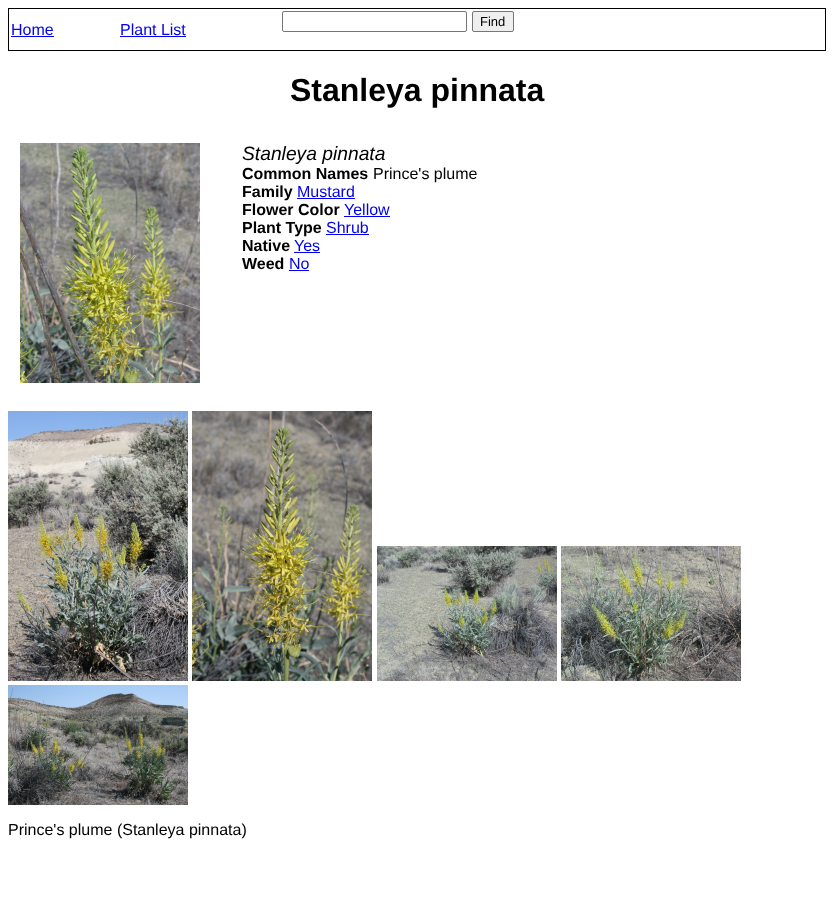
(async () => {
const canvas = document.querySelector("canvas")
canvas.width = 834
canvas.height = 901
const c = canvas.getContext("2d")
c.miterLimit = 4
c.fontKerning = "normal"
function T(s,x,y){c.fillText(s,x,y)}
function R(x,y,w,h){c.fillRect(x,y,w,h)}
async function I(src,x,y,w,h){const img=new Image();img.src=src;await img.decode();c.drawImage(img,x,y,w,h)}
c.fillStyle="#fff"
R(0,0,834,901)
c.fillStyle="#000"
R(8,8,818,43)
c.fillStyle="#fff"
R(9,9,816,41)
c.beginPath()
c.roundRect(282.5,11.5,184,20,1.5)
c.strokeStyle="#767676"
c.stroke()
c.fillStyle="#efefef"
c.beginPath()
c.roundRect(472.5,11.5,41,20,1.5)
c.fill()
c.stroke()
c.font="13px Liberation Sans"
c.fillStyle="#000"
T("Find",480,26)
c.font="16px Liberation Sans"
c.fillStyle="#00e"
T("Home",11,35)
R(11,36,43,1)
T("Plant List",120,35)
R(120,36,66,1)
c.font="bold 32px Liberation Sans"
c.fillStyle="#000"
T("Stanleya pinnata",290,101)
await I("1.png",20,143,180,240)
c.font="italic 19.25px Liberation Sans"
T("Stanleya pinnata",242,160)
c.font="bold 16px Liberation Sans"
T("Common Names",242,179)
c.font="16px Liberation Sans"
T("Prince's plume",373,179)
c.font="bold 16px Liberation Sans"
T("Family",242,197)
c.font="16px Liberation Sans"
c.fillStyle="#00e"
T("Mustard",297,197)
R(297,198,58,1)
c.font="bold 16px Liberation Sans"
c.fillStyle="#000"
T("Flower Color",242,215)
c.font="16px Liberation Sans"
c.fillStyle="#00e"
T("Yellow",344,215)
R(344,216,46,1)
c.font="bold 16px Liberation Sans"
c.fillStyle="#000"
T("Plant Type",242,233)
c.font="16px Liberation Sans"
c.fillStyle="#00e"
T("Shrub",326,233)
R(326,234,43,1)
c.font="bold 16px Liberation Sans"
c.fillStyle="#000"
T("Native",242,251)
c.font="16px Liberation Sans"
c.fillStyle="#00e"
T("Yes",294,251)
R(294,252,26,1)
c.font="bold 16px Liberation Sans"
c.fillStyle="#000"
T("Weed",242,269)
c.font="16px Liberation Sans"
c.fillStyle="#00e"
T("No",289,269)
R(289,270,20,1)
await I("2.png",8,411,180,270)
await I("3.png",192,411,180,270)
await I("4.png",377,546,180,135)
await I("5.png",561,546,180,135)
await I("6.png",8,685,180,120)
c.fillStyle="#000"
T("Prince's plume (Stanleya pinnata)",8,835)
})()
